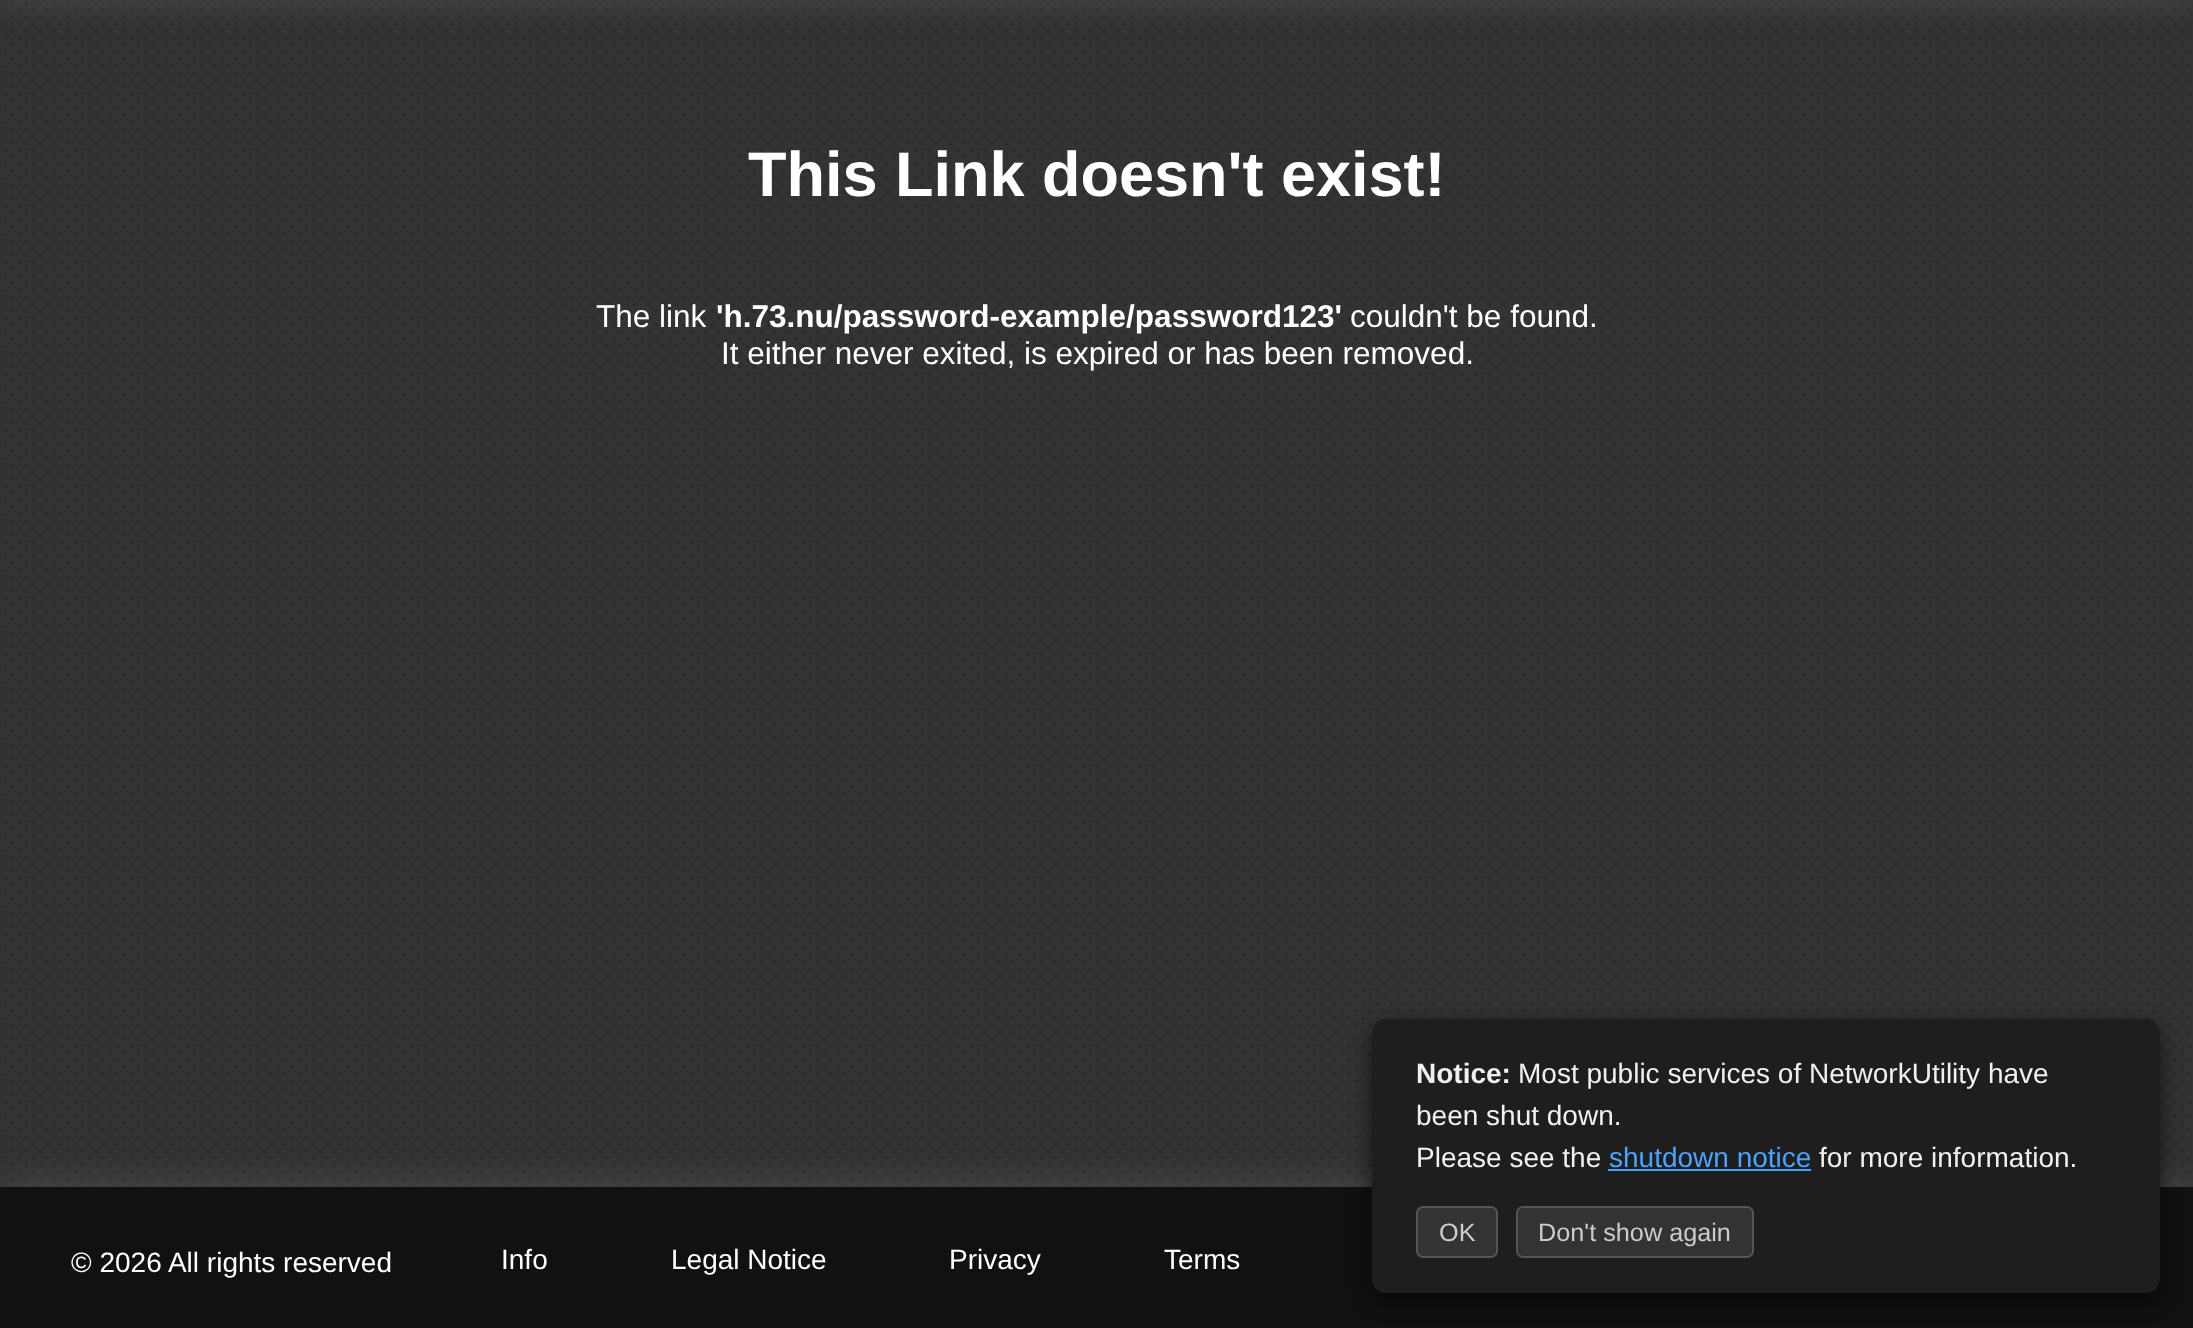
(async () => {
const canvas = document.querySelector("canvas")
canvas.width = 2193
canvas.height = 1328
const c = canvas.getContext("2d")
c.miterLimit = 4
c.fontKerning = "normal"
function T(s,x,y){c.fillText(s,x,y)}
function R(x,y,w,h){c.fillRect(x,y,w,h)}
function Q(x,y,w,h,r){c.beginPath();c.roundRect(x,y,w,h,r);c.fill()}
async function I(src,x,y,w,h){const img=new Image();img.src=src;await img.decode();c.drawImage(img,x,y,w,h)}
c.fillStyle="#333"
R(0,0,2193,1328)
await I("1.png",4,2,2187,1184)
c.fillStyle="#a6a6a633"
c.filter="blur(17.5px)"
c.beginPath()
c.rect(0,-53,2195,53)
c.fill()
c.filter="none"
c.font="bold 63px Liberation Sans"
c.fillStyle="#fff"
T("This Link doesn't exist!",748,196)
c.font="31.5px Liberation Sans"
T("The link",596,327)
c.font="bold 31.5px Liberation Sans"
T("'h.73.nu/password-example/password123'",716,327)
c.font="31.5px Liberation Sans"
T("couldn't be found.",1350,327)
T("It either never exited, is expired or has been removed.",721,364)
c.fillStyle="#a6a6a633"
c.filter="blur(17.5px)"
c.beginPath()
c.rect(0,1185,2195,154)
c.fill()
c.filter="none"
c.fillStyle="#111"
R(0,1187,2193,141)
c.font="28px Liberation Sans"
c.fillStyle="#fff"
T("© 2026 All rights reserved",71,1272)
T("Info",501,1269)
T("Legal Notice",671,1269)
T("Privacy",949,1269)
T("Terms",1164,1269)
c.fillStyle="#00000099"
c.filter="blur(10.5px)"
c.beginPath()
c.roundRect(1372,1026,788,274,14)
c.fill()
c.filter="none"
c.fillStyle="#1e1e1e"
Q(1372,1019,788,274,14)
c.font="bold 28px Liberation Sans"
c.fillStyle="#f0f0f0"
T("Notice:",1416,1083)
c.font="28px Liberation Sans"
T("Most public services of NetworkUtility have",1518,1083)
T("been shut down.",1416,1125)
T("Please see the",1416,1167)
c.fillStyle="#4aa3ff"
T("shutdown notice",1609,1167)
R(1608,1169,203,2)
c.fillStyle="#f0f0f0"
T("for more information.",1819,1167)
c.fillStyle="#333"
c.beginPath()
c.roundRect(1417,1207,80,50,6)
c.fill()
c.strokeStyle="#555"
c.lineWidth=2
c.stroke()
c.font="25.25px Liberation Sans"
c.fillStyle="#ccc"
T("OK",1439,1241)
c.fillStyle="#333"
c.beginPath()
c.roundRect(1517,1207,236,50,6)
c.fill()
c.stroke()
c.fillStyle="#ccc"
T("Don't show again",1538,1241)
})()
